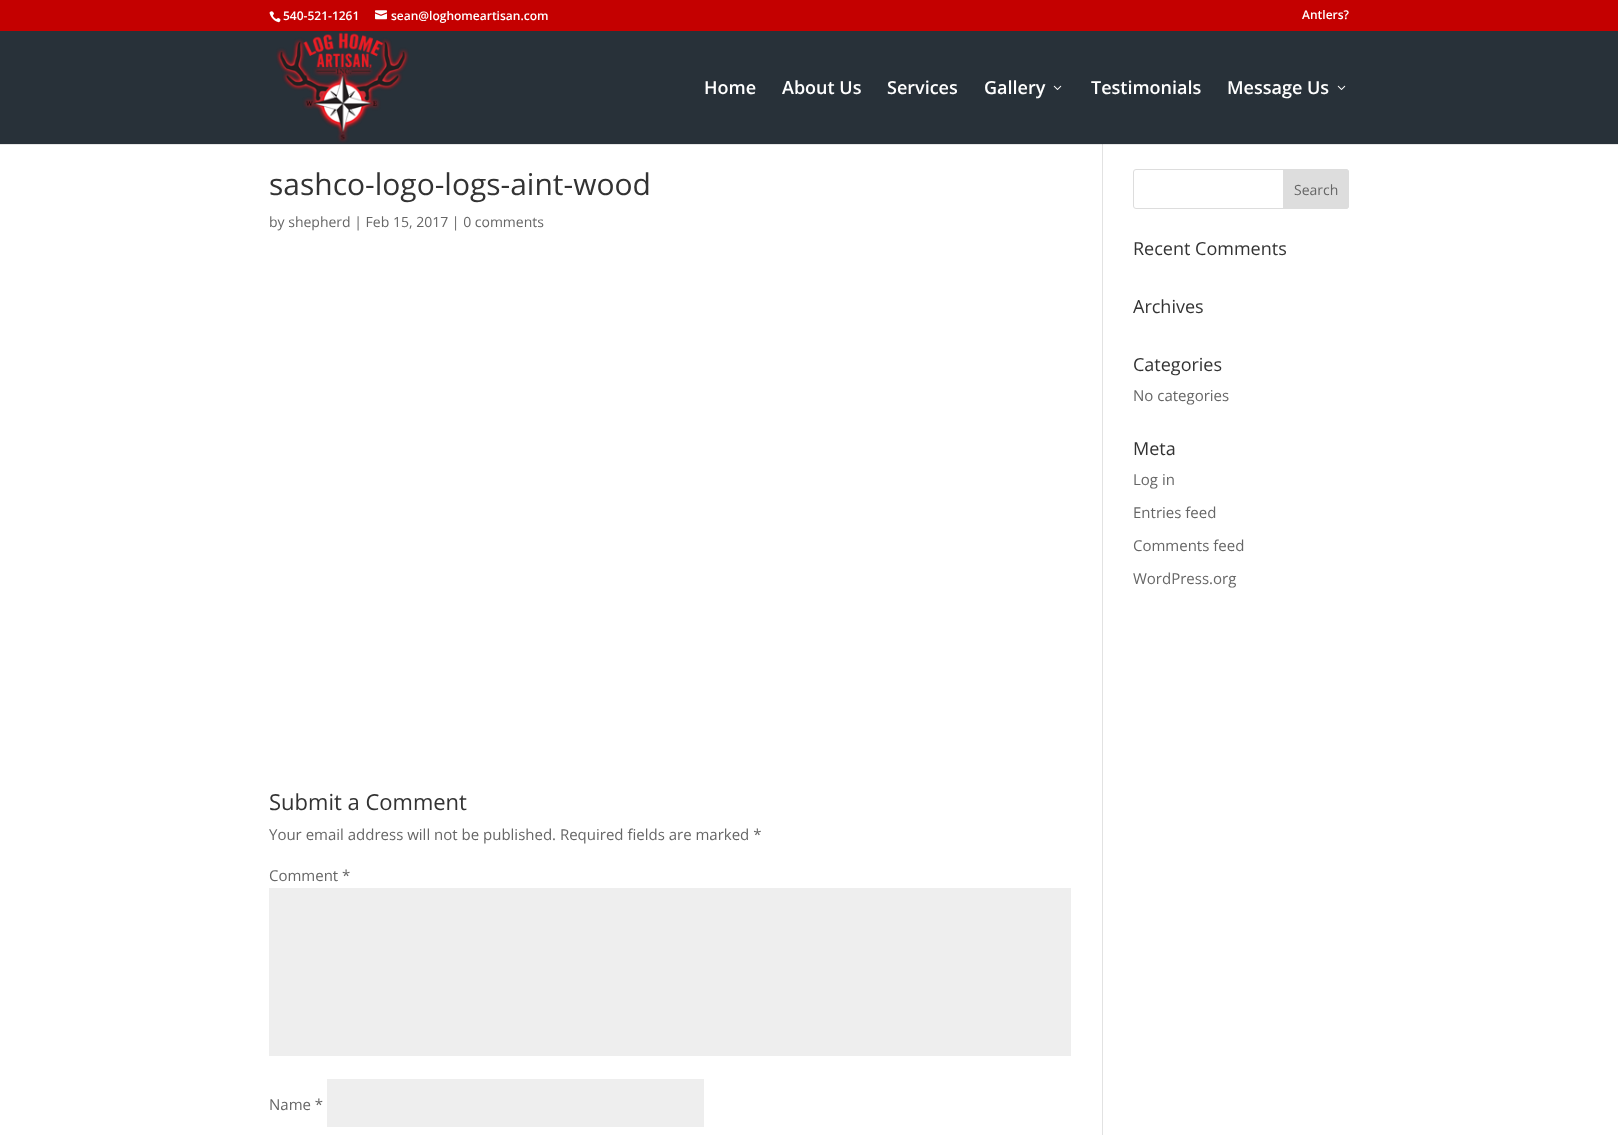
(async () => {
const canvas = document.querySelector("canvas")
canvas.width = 1618
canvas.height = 1135
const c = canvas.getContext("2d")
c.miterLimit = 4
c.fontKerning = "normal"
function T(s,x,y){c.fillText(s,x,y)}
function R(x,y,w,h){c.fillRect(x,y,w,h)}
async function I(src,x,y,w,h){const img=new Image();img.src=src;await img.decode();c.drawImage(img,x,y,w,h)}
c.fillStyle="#fff"
R(0,0,1618,1135)
c.fillStyle="#e6e6e6"
R(0,144,1618,1)
c.fillStyle="#c40000"
R(0,0,1618,31)
await I("1.png",269,11,12,12)
c.font="600 12px Open Sans"
c.fillStyle="#fff"
T("540-521-1261",283,20)
await I("2.png",375,10,12,10)
T("sean@loghomeartisan.com",391,20)
T("Antlers?",1302,19)
c.fillStyle="#283139"
R(0,31,1618,113)
await I("3.png",276,32,133,111)
c.font="600 18px Open Sans"
c.fillStyle="#fff"
T("Home",704,94)
T("About Us",782,94)
T("Services",887,94)
T("Gallery",984,94)
await I("4.png",1053,85,9,5)
T("Testimonials",1091,94)
T("Message Us",1227,94)
await I("4.png",1337,85,9,5)
c.fillStyle="#e2e2e2"
R(1102,145,1,990)
c.fillStyle="#cbcbcb"
R(1102,144,1,1)
c.font="30px Open Sans"
c.fillStyle="#333"
T("sashco-logo-logs-aint-wood",269,195)
c.font="14px Open Sans"
c.fillStyle="#666"
T("by shepherd | Feb 15, 2017 | 0 comments",269,227)
c.font="22px Open Sans"
c.fillStyle="#333"
T("Submit a Comment",269,810)
c.font="15px Open Sans"
c.fillStyle="#666"
T("Your email address will not be published. Required fields are marked *",269,840)
T("Comment *",269,881)
c.fillStyle="#eee"
R(269,888,802,168)
c.fillStyle="#666"
T("Name *",269,1110)
c.fillStyle="#eee"
R(327,1079,377,48)
c.beginPath()
c.roundRect(1133.5,169.5,215,39,2.5)
c.strokeStyle="#ddd"
c.stroke()
c.fillStyle="#ddd"
c.beginPath()
c.roundRect(1283.5,169.5,65,39,[0,2.5,2.5,0])
c.fill()
c.stroke()
c.font="14px Open Sans"
c.fillStyle="#666"
T("Search",1294,195)
c.font="18px Open Sans"
c.fillStyle="#333"
T("Recent Comments",1133,255)
T("Archives",1133,313)
T("Categories",1133,371)
c.font="15px Open Sans"
c.fillStyle="#666"
T("No categories",1133,401)
c.font="18px Open Sans"
c.fillStyle="#333"
T("Meta",1133,455)
c.font="15px Open Sans"
c.fillStyle="#666"
T("Log in",1133,485)
T("Entries feed",1133,518)
T("Comments feed",1133,551)
T("WordPress.org",1133,584)
})()
